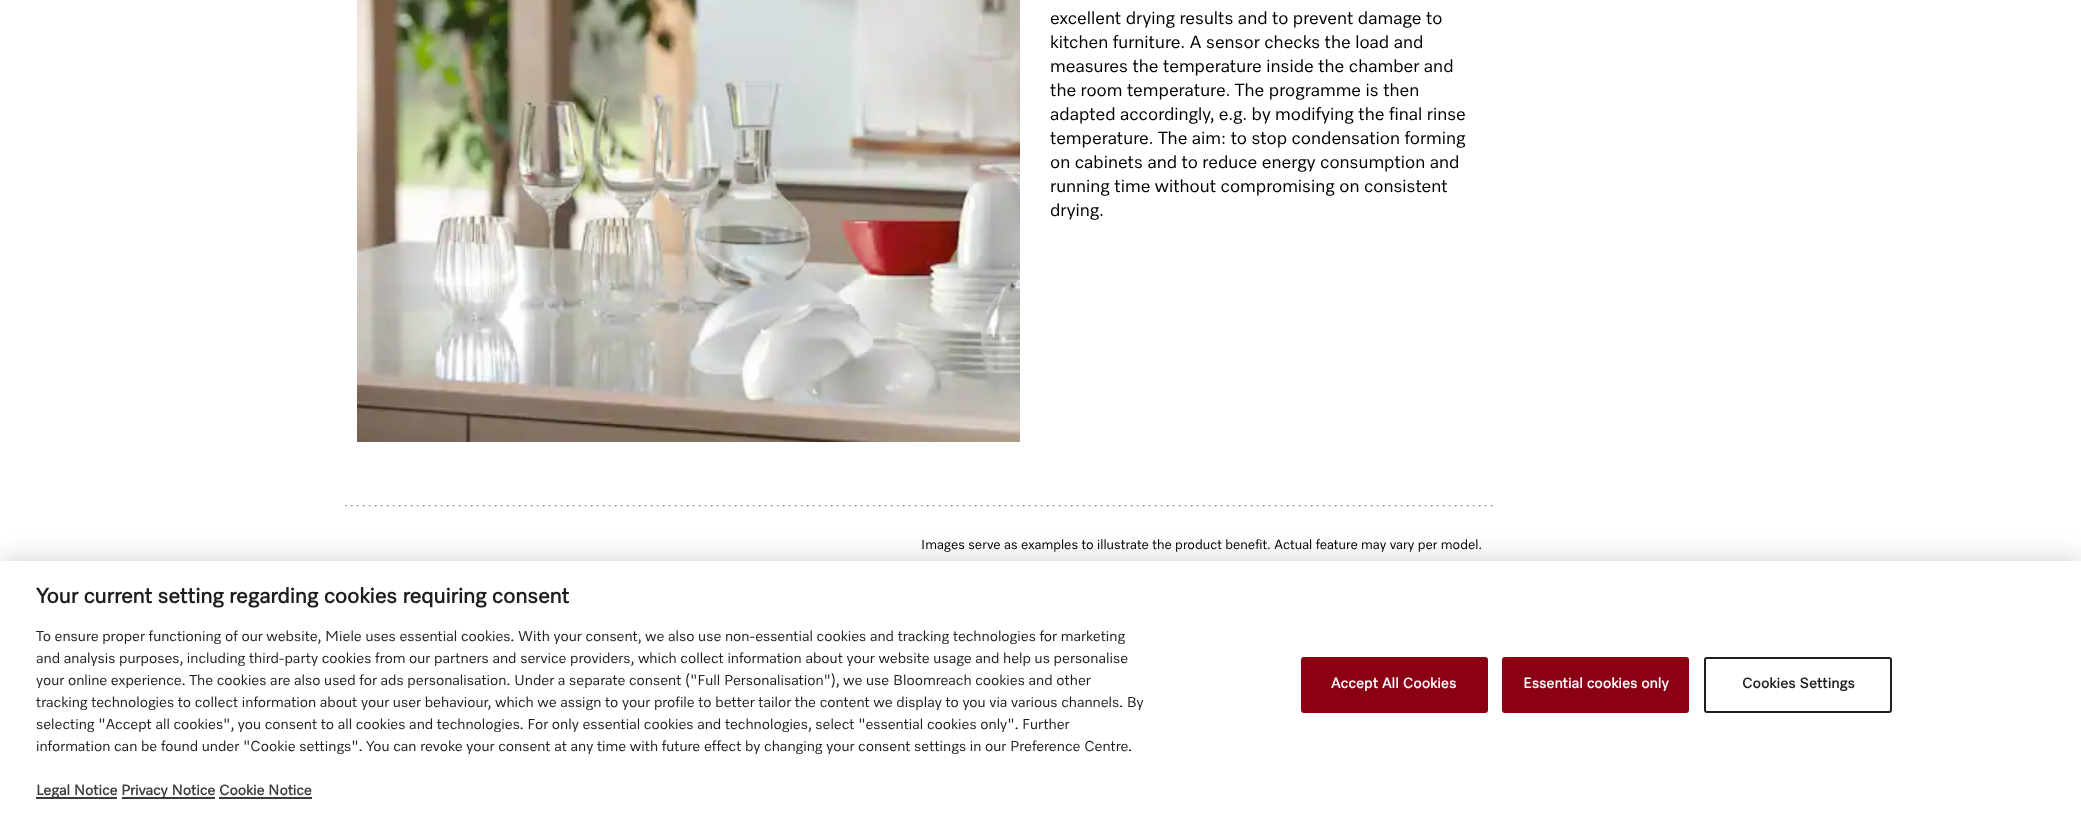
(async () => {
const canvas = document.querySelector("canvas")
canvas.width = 2081
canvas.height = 813
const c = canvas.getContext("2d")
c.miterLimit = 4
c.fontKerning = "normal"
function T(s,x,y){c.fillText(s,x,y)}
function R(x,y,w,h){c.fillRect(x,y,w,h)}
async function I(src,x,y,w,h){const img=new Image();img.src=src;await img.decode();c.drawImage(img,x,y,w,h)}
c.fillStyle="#fff"
R(0,0,2081,813)
await I("1.png",357,0,663,442)
c.font="18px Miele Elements"
c.fillStyle="#000"
T("excellent drying results and to prevent damage to",1050,24)
T("kitchen furniture. A sensor checks the load and",1050,48)
T("measures the temperature inside the chamber and",1050,72)
T("the room temperature. The programme is then",1050,96)
T("adapted accordingly, e.g. by modifying the final rinse",1050,120)
T("temperature. The aim: to stop condensation forming",1050,144)
T("on cabinets and to reduce energy consumption and",1050,168)
T("running time without compromising on consistent",1050,192)
T("drying.",1050,216)
await I("2.png",345,505,1148,2)
c.font="13.5px Miele Elements"
T("Images serve as examples to illustrate the product benefit. Actual feature may vary per model.",921,549)
c.fillStyle="#00000033"
c.filter="blur(13.5px)"
c.beginPath()
c.rect(0,561,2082,252)
c.fill()
c.filter="none"
c.fillStyle="#fff"
R(0,561,2081,252)
c.font="bold 21.6px Miele Elements"
c.fillStyle="#1e1e1e"
T("Your current setting regarding cookies requiring consent",36,603)
c.font="14.63px Miele Elements"
T("To ensure proper functioning of our website, Miele uses essential cookies. With your consent, we also use non-essential cookies and tracking technologies for marketing",36,641)
T("and analysis purposes, including third-party cookies from our partners and service providers, which collect information about your website usage and help us personalise",36,663)
T("your online experience. The cookies are also used for ads personalisation. Under a separate consent (\"Full Personalisation\"), we use Bloomreach cookies and other",36,685)
T("tracking technologies to collect information about your user behaviour, which we assign to your profile to better tailor the content we display to you via various channels. By",36,707)
T("selecting \"Accept all cookies\", you consent to all cookies and technologies. For only essential cookies and technologies, select \"essential cookies only\". Further",36,729)
T("information can be found under \"Cookie settings\". You can revoke your consent at any time with future effect by changing your consent settings in our Preference Centre.",36,751)
c.fillStyle="#3e3c39"
R(36,797,81,2)
c.font="bold 14.63px Miele Elements"
T("Legal Notice",36,795)
R(122,797,93,2)
T("Privacy Notice Cookie Notice",121,795)
R(219,797,93,2)
c.fillStyle="#8c0014"
c.beginPath()
c.roundRect(1302,658,185,54,2)
c.fill()
c.strokeStyle="#8c0014"
c.lineWidth=2
c.stroke()
c.letterSpacing="0.15px"
c.fillStyle="#fff"
T("Accept All Cookies",1331,688)
c.fillStyle="#8c0014"
c.beginPath()
c.roundRect(1503,658,185,54,2)
c.fill()
c.stroke()
c.fillStyle="#fff"
T("Essential cookies only",1523,688)
c.beginPath()
c.roundRect(1705,658,186,54,2)
c.strokeStyle="#1e1e1e"
c.stroke()
c.fillStyle="#1e1e1e"
T("Cookies Settings",1742,688)
})()
